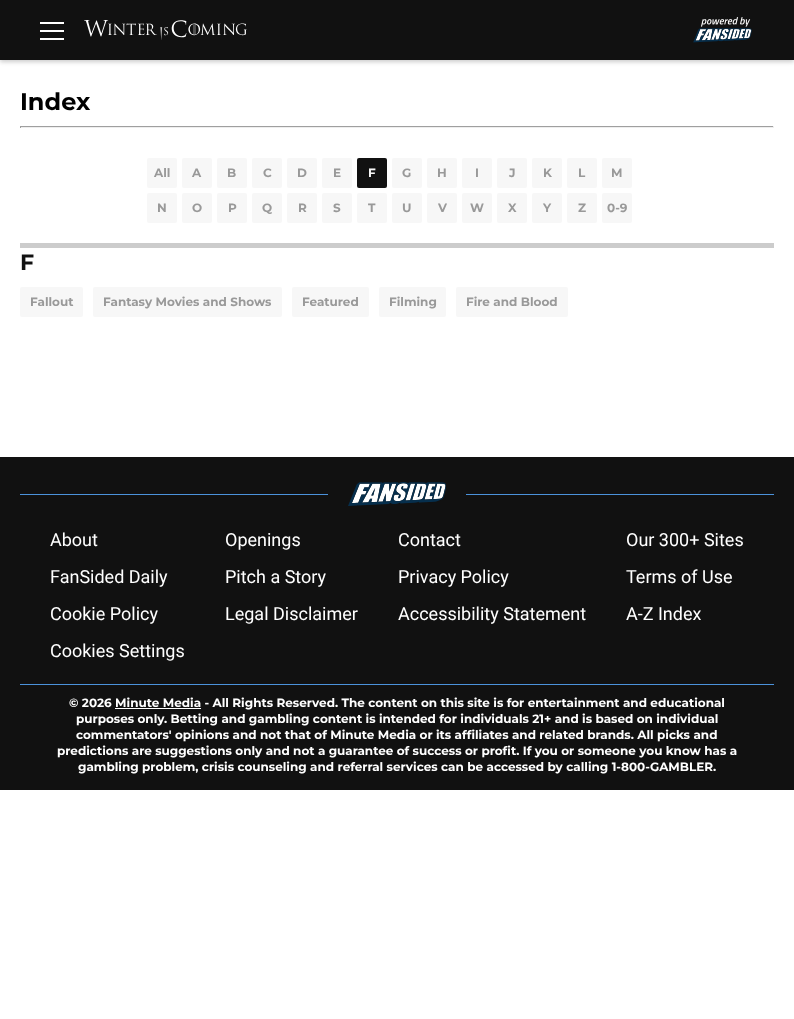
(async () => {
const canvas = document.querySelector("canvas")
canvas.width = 794
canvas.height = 1019
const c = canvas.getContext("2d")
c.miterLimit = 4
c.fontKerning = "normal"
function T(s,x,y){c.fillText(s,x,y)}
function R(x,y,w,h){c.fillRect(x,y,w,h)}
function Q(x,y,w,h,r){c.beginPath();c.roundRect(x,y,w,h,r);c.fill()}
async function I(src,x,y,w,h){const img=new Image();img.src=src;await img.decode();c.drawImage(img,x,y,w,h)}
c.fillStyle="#fff"
R(0,0,794,1019)
c.fillStyle="#00000033"
c.filter="blur(2px)"
c.beginPath()
c.rect(0,2,794,60)
c.fill()
c.filter="none"
c.fillStyle="#111"
R(0,0,794,60)
c.fillStyle="#fff"
R(40,22,24,2)
R(40,30,24,2)
R(40,38,24,2)
await I("1.png",84,20,163,20)
await I("2.png",693,17,59,26)
c.font="bold 24px Montserrat"
c.fillStyle="#000"
T("Index",20,110)
c.fillStyle="#9f9f9f"
R(20,126,754,1)
c.fillStyle="#eee"
R(773,126,1,2)
R(20,127,754,1)
c.fillStyle="#9f9f9f"
R(20,126,1,2)
c.fillStyle="#f7f7f7"
Q(147,158,30,30,2)
c.font="bold 12px Montserrat"
c.fillStyle="#999"
T("All",154,177)
c.fillStyle="#f7f7f7"
Q(182,158,30,30,2)
c.fillStyle="#999"
T("A",192,177)
c.fillStyle="#f7f7f7"
Q(217,158,30,30,2)
c.fillStyle="#999"
T("B",227,177)
c.fillStyle="#f7f7f7"
Q(252,158,30,30,2)
c.fillStyle="#999"
T("C",263,177)
c.fillStyle="#f7f7f7"
Q(287,158,30,30,2)
c.fillStyle="#999"
T("D",297,177)
c.fillStyle="#f7f7f7"
Q(322,158,30,30,2)
c.fillStyle="#999"
T("E",333,177)
c.fillStyle="#111"
Q(357,158,30,30,2)
c.fillStyle="#f7f7f7"
T("F",368,177)
Q(392,158,30,30,2)
c.fillStyle="#999"
T("G",402,177)
c.fillStyle="#f7f7f7"
Q(427,158,30,30,2)
c.fillStyle="#999"
T("H",437,177)
c.fillStyle="#f7f7f7"
Q(462,158,30,30,2)
c.fillStyle="#999"
T("I",475,177)
c.fillStyle="#f7f7f7"
Q(497,158,30,30,2)
c.fillStyle="#999"
T("J",509,177)
c.fillStyle="#f7f7f7"
Q(532,158,30,30,2)
c.fillStyle="#999"
T("K",543,177)
c.fillStyle="#f7f7f7"
Q(567,158,30,30,2)
c.fillStyle="#999"
T("L",578,177)
c.fillStyle="#f7f7f7"
Q(602,158,30,30,2)
c.fillStyle="#999"
T("M",611,177)
c.fillStyle="#f7f7f7"
Q(147,193,30,30,2)
c.fillStyle="#999"
T("N",157,212)
c.fillStyle="#f7f7f7"
Q(182,193,30,30,2)
c.fillStyle="#999"
T("O",192,212)
c.fillStyle="#f7f7f7"
Q(217,193,30,30,2)
c.fillStyle="#999"
T("P",228,212)
c.fillStyle="#f7f7f7"
Q(252,193,30,30,2)
c.fillStyle="#999"
T("Q",262,212)
c.fillStyle="#f7f7f7"
Q(287,193,30,30,2)
c.fillStyle="#999"
T("R",298,212)
c.fillStyle="#f7f7f7"
Q(322,193,30,30,2)
c.fillStyle="#999"
T("S",333,212)
c.fillStyle="#f7f7f7"
Q(357,193,30,30,2)
c.fillStyle="#999"
T("T",368,212)
c.fillStyle="#f7f7f7"
Q(392,193,30,30,2)
c.fillStyle="#999"
T("U",402,212)
c.fillStyle="#f7f7f7"
Q(427,193,30,30,2)
c.fillStyle="#999"
T("V",438,212)
c.fillStyle="#f7f7f7"
Q(462,193,30,30,2)
c.fillStyle="#999"
T("W",470,212)
c.fillStyle="#f7f7f7"
Q(497,193,30,30,2)
c.fillStyle="#999"
T("X",508,212)
c.fillStyle="#f7f7f7"
Q(532,193,30,30,2)
c.fillStyle="#999"
T("Y",543,212)
c.fillStyle="#f7f7f7"
Q(567,193,30,30,2)
c.fillStyle="#999"
T("Z",578,212)
c.fillStyle="#f7f7f7"
Q(602,193,30,30,2)
c.fillStyle="#999"
T("0-9",607,212)
c.fillStyle="#ccc"
R(20,243,754,5)
c.font="bold 22px Montserrat"
c.fillStyle="#111"
T("F",20,270)
c.fillStyle="#f7f7f7"
Q(20,287,63,30,2)
c.font="bold 12px Montserrat"
c.fillStyle="#999"
T("Fallout",30,306)
c.fillStyle="#f7f7f7"
Q(93,287,189,30,2)
c.fillStyle="#999"
T("Fantasy Movies and Shows",103,306)
c.fillStyle="#f7f7f7"
Q(292,287,77,30,2)
c.fillStyle="#999"
T("Featured",302,306)
c.fillStyle="#f7f7f7"
Q(379,287,67,30,2)
c.fillStyle="#999"
T("Filming",389,306)
c.fillStyle="#f7f7f7"
Q(456,287,112,30,2)
c.fillStyle="#999"
T("Fire and Blood",466,306)
c.fillStyle="#111"
R(0,457,794,333)
c.fillStyle="#4b92db"
R(20,494,308,1)
await I("3.png",348,482,98,24)
R(466,494,308,1)
c.font="18px Roboto"
c.fillStyle="#fff"
T("About",50,546)
T("Openings",225,546)
T("Contact",398,546)
T("Our 300+ Sites",626,546)
T("FanSided Daily",50,583)
T("Pitch a Story",225,583)
T("Privacy Policy",398,583)
T("Terms of Use",626,583)
T("Cookie Policy",50,620)
T("Legal Disclaimer",225,620)
T("Accessibility Statement",398,620)
T("A-Z Index",626,620)
T("Cookies Settings",50,657)
c.fillStyle="#4b92db"
R(20,684,754,1)
c.font="bold 12px Montserrat"
c.fillStyle="#fff"
T("© 2026 Minute Media - All Rights Reserved. The content on this site is for entertainment and educational",69,707)
R(115,708,86,1)
T("purposes only. Betting and gambling content is intended for individuals 21+ and is based on individual",76,723)
T("commentators' opinions and not that of Minute Media or its affiliates and related brands. All picks and",76,739)
T("predictions are suggestions only and not a guarantee of success or profit. If you or someone you know has a",57,755)
T("gambling problem, crisis counseling and referral services can be accessed by calling 1-800-GAMBLER.",78,771)
})()
